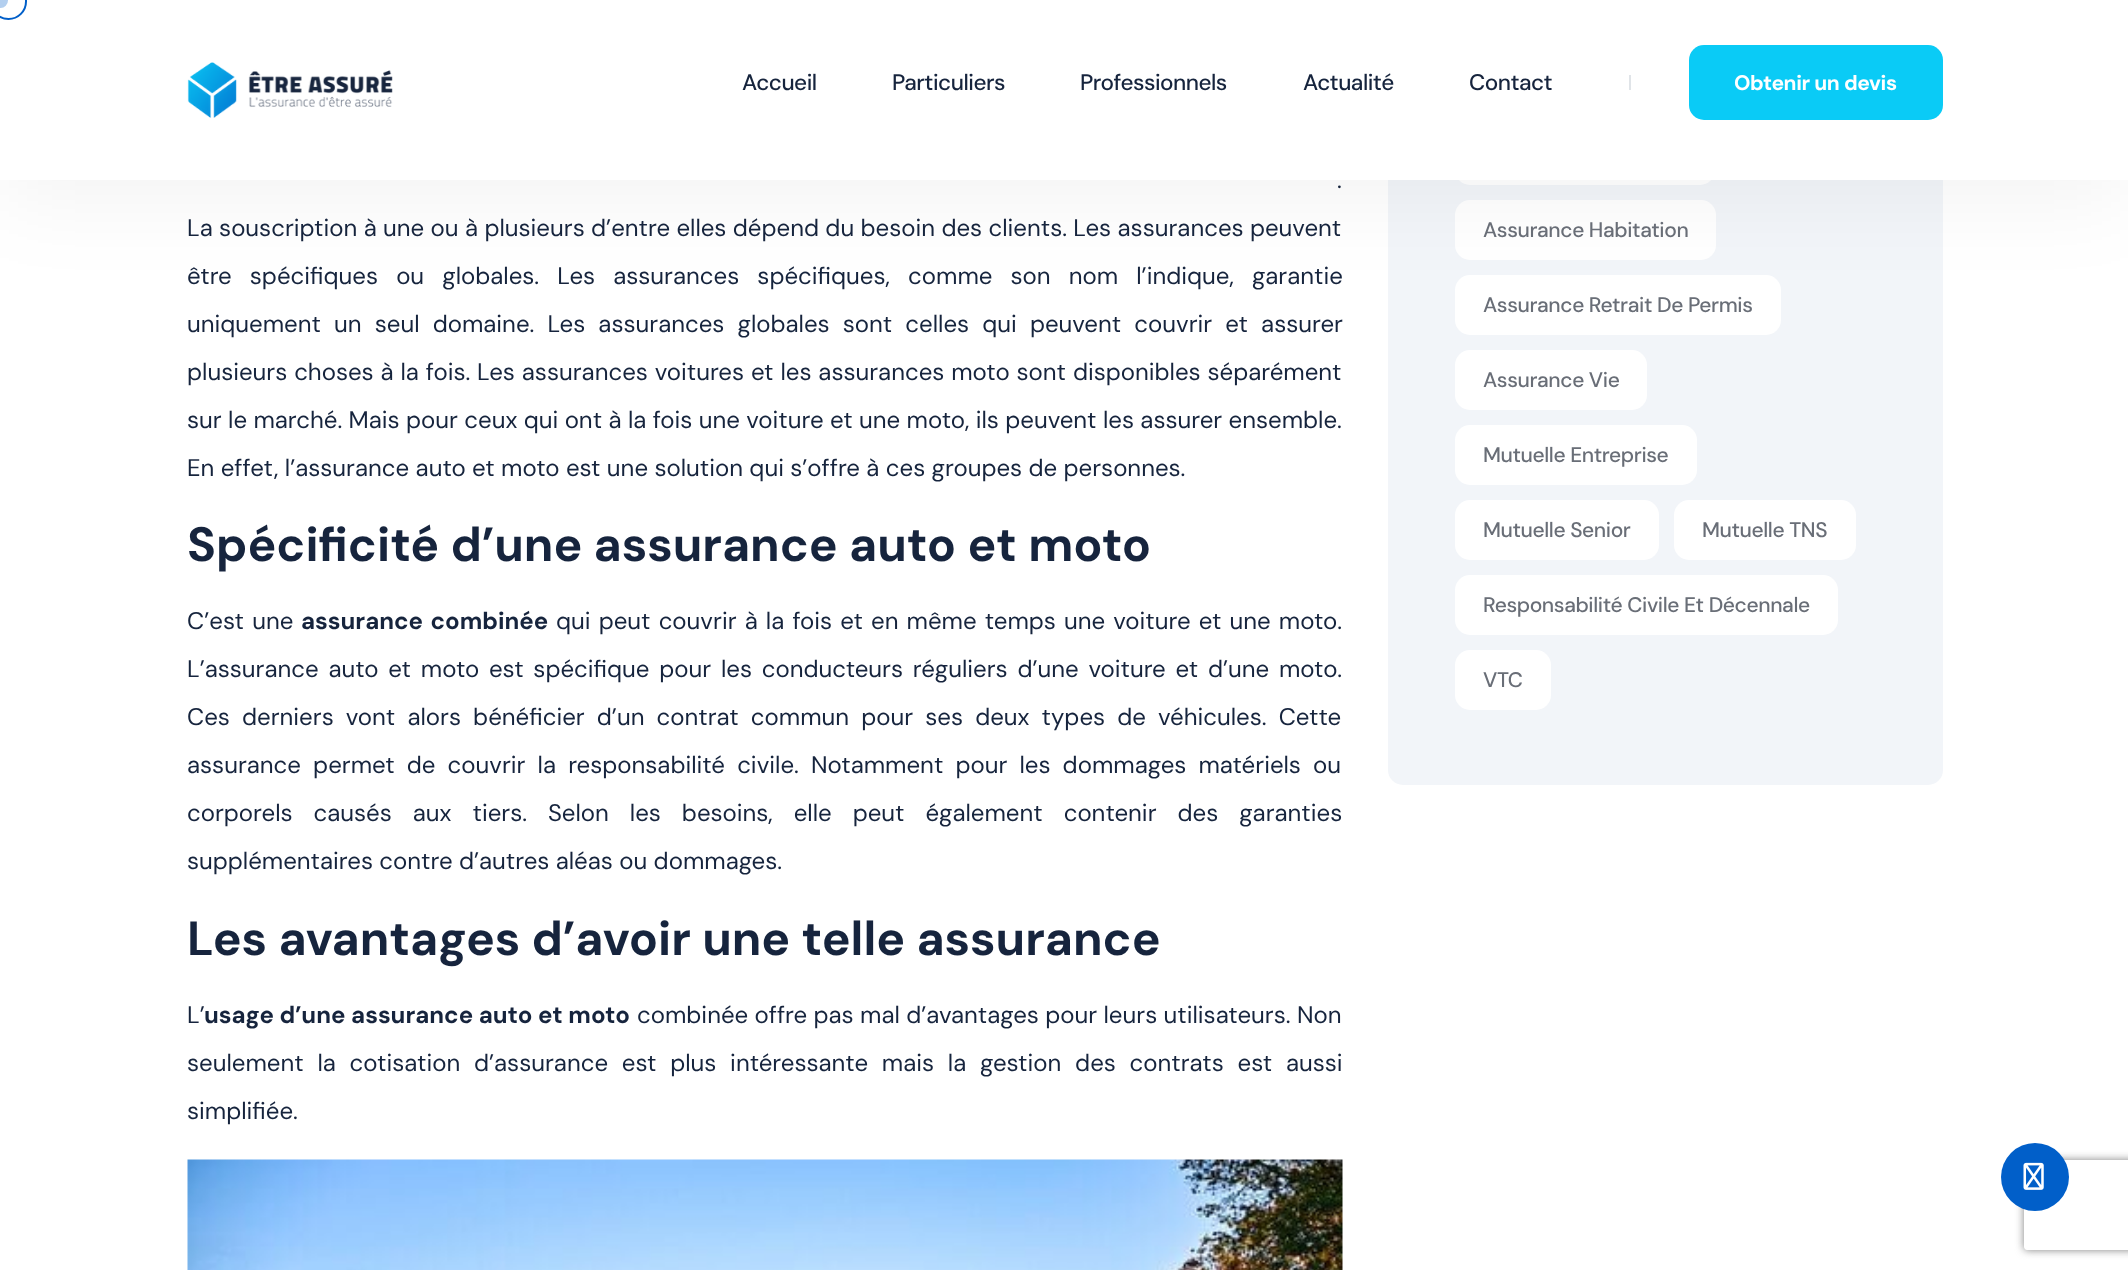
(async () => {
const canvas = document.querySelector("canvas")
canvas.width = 2128
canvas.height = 1270
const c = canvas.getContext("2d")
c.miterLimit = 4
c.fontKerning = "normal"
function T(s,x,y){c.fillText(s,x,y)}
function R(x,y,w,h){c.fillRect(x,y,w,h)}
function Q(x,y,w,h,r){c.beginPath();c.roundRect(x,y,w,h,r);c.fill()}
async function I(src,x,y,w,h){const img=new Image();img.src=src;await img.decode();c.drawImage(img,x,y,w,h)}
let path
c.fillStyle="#fff"
R(0,0,2128,1270)
c.fillStyle="#f2f5f9"
Q(1388,-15,555,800,15)
c.fillStyle="#fff"
Q(1455,125,260,60,15)
Q(1455,200,261,60,15)
Q(1455,275,326,60,15)
c.fillStyle="#0000000d"
c.filter="blur(45px)"
c.beginPath()
c.rect(0,15,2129,180)
c.fill()
c.filter="none"
c.fillStyle="#fff"
R(0,0,2128,180)
c.beginPath()
c.roundRect(-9,-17,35,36,17.5)
c.strokeStyle="#015fc9"
c.lineWidth=2
c.stroke()
c.fillStyle="#b3cfef"
c.beginPath()
c.arc(.5,.5,7.5,0,7)
c.fill()
await I("1.png",187,62,206,56)
c.letterSpacing="-0.5px"
c.font="500 22.5px DM Sans"
c.fillStyle="#16243d"
T("Accueil",742,90)
T("Particuliers",892,90)
T("Professionnels",1080,90)
T("Actualité",1303,90)
T("Contact",1469,90)
c.fillStyle="#e0e4e8"
R(1629,75,2,15)
c.fillStyle="#0acbf6"
Q(1689,45,254,75,15)
c.letterSpacing="-0.4px"
c.font="bold 21px DM Sans"
c.fillStyle="#fff"
T("Obtenir un devis",1734,90)
c.save()
path = new Path2D("M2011 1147h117v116h-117zm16 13h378c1.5 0 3 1.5 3 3v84c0 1.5-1.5 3-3 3h-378c-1.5 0-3-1.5-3-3v-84c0-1.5 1.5-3 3-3z")
c.clip(path,"evenodd")
c.fillStyle="#808080"
c.filter="blur(4px)"
c.beginPath()
c.roundRect(2024,1160,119,90,3)
c.fill()
c.filter="none"
c.restore()
c.fillStyle="#015fc9"
c.beginPath()
c.arc(2035,1177,34,0,7)
c.fill()
await I("2.png",2023,1162,21,28)
c.letterSpacing="0px"
c.wordSpacing="2px"
c.font="24px DM Sans"
c.fillStyle="#16243d"
T(".",1337,188)
c.wordSpacing="0px"
T("La souscription à une ou à plusieurs d’entre elles dépend du besoin des clients. Les assurances peuvent",187,236)
c.wordSpacing="11.75px"
T("être spécifiques ou globales. Les assurances spécifiques, comme son nom l’indique, garantie",187,284)
c.wordSpacing="6.75px"
T("uniquement un seul domaine. Les assurances globales sont celles qui peuvent couvrir et assurer",187,332)
c.wordSpacing="0.5px"
T("plusieurs choses à la fois. Les assurances voitures et les assurances moto sont disponibles séparément",187,380)
c.wordSpacing="0px"
T("sur le marché. Mais pour ceux qui ont à la fois une voiture et une moto, ils peuvent les assurer ensemble.",187,428)
T("En effet, l’assurance auto et moto est une solution qui s’offre à ces groupes de personnes.",187,476)
c.font="bold 48px DM Sans"
T("Spécificité d’une assurance auto et moto",187,561)
c.wordSpacing="2px"
c.font="24px DM Sans"
T("C’est une",187,629)
c.wordSpacing="1.75px"
c.font="bold 24px DM Sans"
T("assurance combinée",301,629)
c.font="24px DM Sans"
T("qui peut couvrir à la fois et en même temps une voiture et une moto.",556,629)
c.wordSpacing="3.4px"
T("L’assurance auto et moto est spécifique pour les conducteurs réguliers d’une voiture et d’une moto.",187,677)
c.wordSpacing="5.75px"
T("Ces derniers vont alors bénéficier d’un contrat commun pour ses deux types de véhicules. Cette",187,725)
T("assurance permet de couvrir la responsabilité civile. Notamment pour les dommages matériels ou",187,773)
c.wordSpacing="14.6px"
T("corporels causés aux tiers. Selon les besoins, elle peut également contenir des garanties",187,821)
c.wordSpacing="0px"
T("supplémentaires contre d’autres aléas ou dommages.",187,869)
c.font="bold 48px DM Sans"
T("Les avantages d’avoir une telle assurance",187,955)
c.font="24px DM Sans"
T("L’",187,1023)
c.font="bold 24px DM Sans"
T("usage d’une assurance auto et moto",204,1023)
c.font="24px DM Sans"
T("combinée offre pas mal d’avantages pour leurs utilisateurs. Non",637,1023)
c.wordSpacing="7.4px"
T("seulement la cotisation d’assurance est plus intéressante mais la gestion des contrats est aussi",187,1071)
c.wordSpacing="0px"
T("simplifiée.",187,1119)
await I("3.png",187,1159,1156,111)
c.letterSpacing="-0.4px"
c.font="500 21px DM Sans"
c.fillStyle="#696e77"
T("Assurance Habitation",1483,237)
T("Assurance Retrait De Permis",1483,312)
c.fillStyle="#fff"
Q(1455,350,192,60,15)
c.fillStyle="#696e77"
T("Assurance Vie",1483,387)
c.fillStyle="#fff"
Q(1455,425,242,60,15)
c.fillStyle="#696e77"
T("Mutuelle Entreprise",1483,462)
c.fillStyle="#fff"
Q(1455,500,204,60,15)
c.fillStyle="#696e77"
T("Mutuelle Senior",1483,537)
c.fillStyle="#fff"
Q(1674,500,182,60,15)
c.fillStyle="#696e77"
T("Mutuelle TNS",1702,537)
c.fillStyle="#fff"
Q(1455,575,383,60,15)
c.fillStyle="#696e77"
T("Responsabilité Civile Et Décennale",1483,612)
c.fillStyle="#fff"
Q(1455,650,96,60,15)
c.fillStyle="#696e77"
T("VTC",1483,687)
})()
